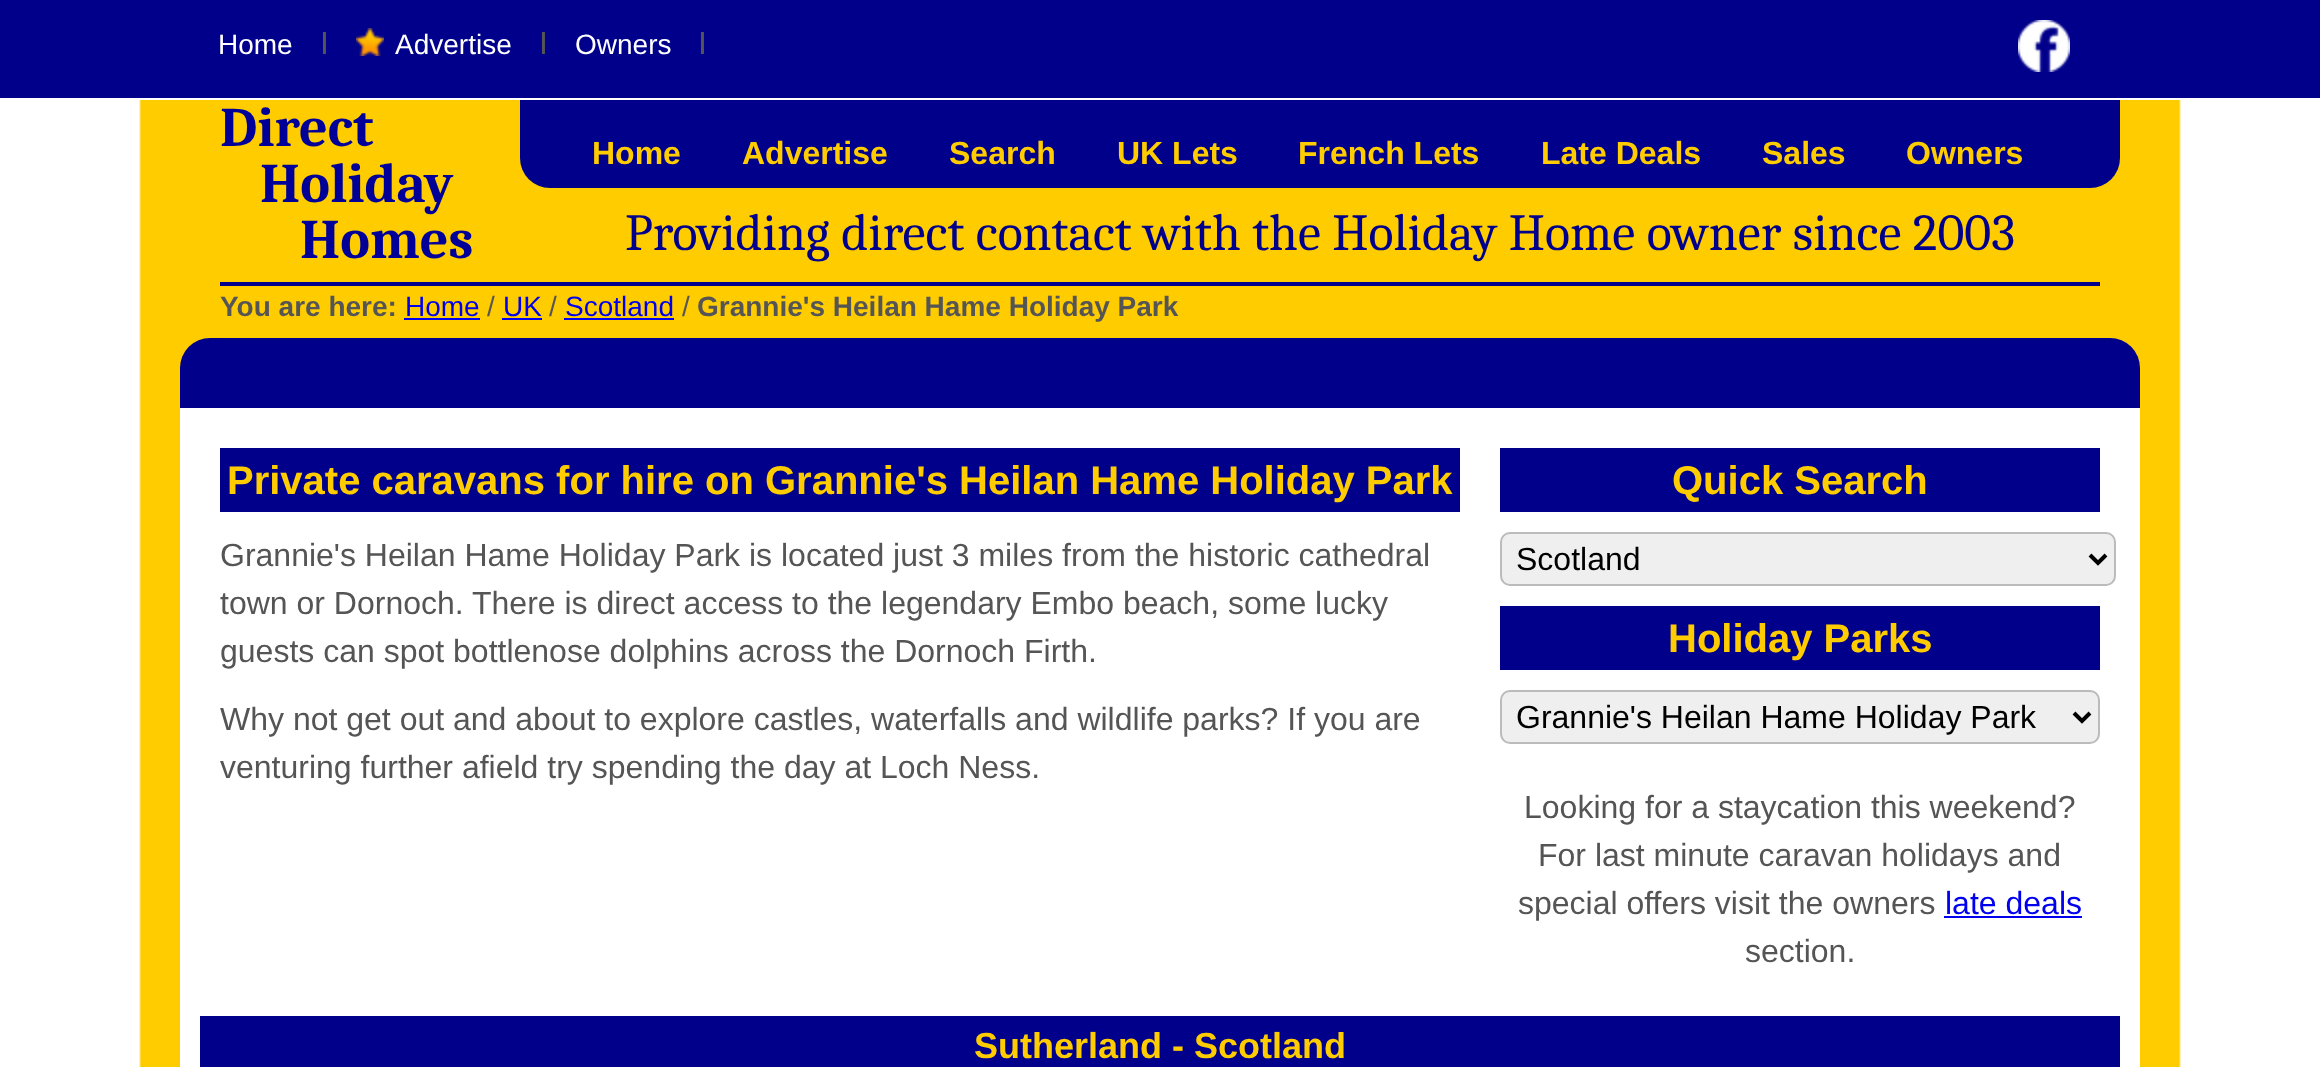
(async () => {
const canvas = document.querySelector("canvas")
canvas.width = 2320
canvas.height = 1067
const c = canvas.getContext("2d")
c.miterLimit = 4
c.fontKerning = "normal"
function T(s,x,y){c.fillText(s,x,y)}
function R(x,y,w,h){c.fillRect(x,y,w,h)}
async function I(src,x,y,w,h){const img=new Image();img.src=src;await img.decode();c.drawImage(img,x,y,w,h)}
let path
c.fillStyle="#fff"
R(0,0,2320,1067)
await I("1.png",139,100,2042,967)
c.fillStyle="#00008b"
R(0,0,2320,98)
c.font="28px Liberation Sans"
c.fillStyle="#fff"
T("Home",218,54)
c.font="32px Liberation Sans"
c.fillStyle="#555"
T("I",320,54)
await I("2.png",356,28,28,28)
c.font="28px Liberation Sans"
c.fillStyle="#fff"
T("Advertise",395,54)
c.font="32px Liberation Sans"
c.fillStyle="#555"
T("I",539,54)
c.font="28px Liberation Sans"
c.fillStyle="#fff"
T("Owners",575,54)
c.font="32px Liberation Sans"
c.fillStyle="#555"
T("I",698,54)
await I("3.png",2018,20,52,52)
c.font="bold 56px Caladea"
c.fillStyle="#009"
T("Direct",220,146)
T("Holiday",260,202)
T("Homes",300,258)
c.fillStyle="#00008b"
c.beginPath()
c.roundRect(520,100,1600,88,[0,0,30,30])
c.fill()
c.font="bold 32px Liberation Sans"
c.fillStyle="#fc0"
T("Home",592,164)
T("Advertise",742,164)
T("Search",949,164)
T("UK Lets",1117,164)
T("French Lets",1298,164)
T("Late Deals",1541,164)
T("Sales",1762,164)
T("Owners",1906,164)
c.font="52px Caladea"
c.fillStyle="#00008b"
T("Providing direct contact with the Holiday Home owner since 2003",625,250)
c.fillStyle="#01008c"
R(220,282,1880,4)
c.font="bold 28px Liberation Sans"
c.fillStyle="#555"
T("You are here:",220,316)
c.font="28px Liberation Sans"
c.fillStyle="#00e"
T("Home",405,316)
R(404,318,76,2)
c.fillStyle="#555"
T("/",487,316)
c.fillStyle="#00e"
T("UK",503,316)
R(502,318,40,2)
c.fillStyle="#555"
T("/",549,316)
c.fillStyle="#00e"
T("Scotland",565,316)
R(564,318,110,2)
c.fillStyle="#555"
T("/",682,316)
c.font="bold 28px Liberation Sans"
T("Grannie's Heilan Hame Holiday Park",697,316)
c.fillStyle="#00008b"
c.beginPath()
c.roundRect(180,338,1960,70,[30,30,0,0])
c.fill()
c.fillStyle="#fff"
R(180,408,1960,659)
c.fillStyle="#00008b"
R(220,448,1240,64)
c.font="bold 40px Liberation Sans"
c.fillStyle="#fc0"
T("Private caravans for hire on Grannie's Heilan Hame Holiday Park",227,494)
c.font="32px Liberation Sans"
c.fillStyle="#555"
T("Grannie's Heilan Hame Holiday Park is located just 3 miles from the historic cathedral",220,566)
T("town or Dornoch. There is direct access to the legendary Embo beach, some lucky",220,614)
T("guests can spot bottlenose dolphins across the Dornoch Firth.",220,662)
T("Why not get out and about to explore castles, waterfalls and wildlife parks? If you are",220,730)
T("venturing further afield try spending the day at Loch Ness.",220,778)
c.fillStyle="#00008b"
R(1500,448,600,64)
c.font="bold 40px Liberation Sans"
c.fillStyle="#fc0"
T("Quick Search",1672,494)
c.fillStyle="#efefef"
c.beginPath()
c.roundRect(1501,533,614,52,9)
c.fill()
c.strokeStyle="#bbb"
c.lineWidth=2
c.stroke()
path = new Path2D("M2090 555l8 8l8-8")
c.strokeStyle="#000"
c.lineWidth=4
c.stroke(path)
c.font="32px Liberation Sans"
c.fillStyle="#000"
T("Scotland",1516,570)
c.fillStyle="#00008b"
R(1500,606,600,64)
c.font="bold 40px Liberation Sans"
c.fillStyle="#fc0"
T("Holiday Parks",1668,652)
c.fillStyle="#efefef"
c.beginPath()
c.roundRect(1501,691,598,52,9)
c.fill()
c.strokeStyle="#bbb"
c.lineWidth=2
c.stroke()
path = new Path2D("M2074 713l8 8l8-8")
c.strokeStyle="#000"
c.lineWidth=4
c.stroke(path)
c.font="32px Liberation Sans"
c.fillStyle="#000"
T("Grannie's Heilan Hame Holiday Park",1516,728)
c.fillStyle="#555"
T("Looking for a staycation this weekend?",1524,818)
T("For last minute caravan holidays and",1538,866)
T("special offers visit the owners",1518,914)
c.fillStyle="#00e"
T("late deals",1945,914)
R(1944,916,138,2)
c.fillStyle="#555"
T("section.",1745,962)
c.fillStyle="#00008b"
R(200,1016,1920,51)
c.font="bold 36px Liberation Sans"
c.fillStyle="#fc0"
T("Sutherland - Scotland",974,1058)
})()
